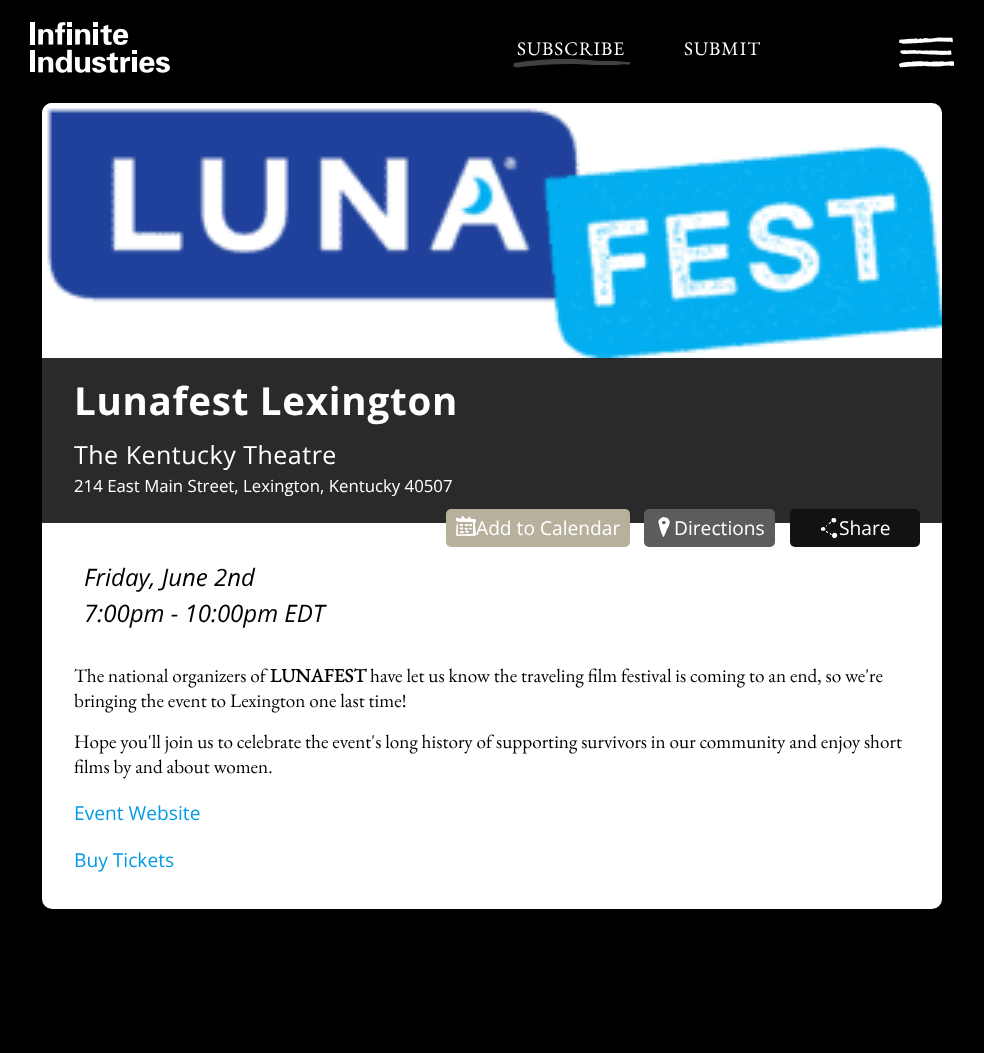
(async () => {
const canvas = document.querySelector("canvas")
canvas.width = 984
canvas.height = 1053
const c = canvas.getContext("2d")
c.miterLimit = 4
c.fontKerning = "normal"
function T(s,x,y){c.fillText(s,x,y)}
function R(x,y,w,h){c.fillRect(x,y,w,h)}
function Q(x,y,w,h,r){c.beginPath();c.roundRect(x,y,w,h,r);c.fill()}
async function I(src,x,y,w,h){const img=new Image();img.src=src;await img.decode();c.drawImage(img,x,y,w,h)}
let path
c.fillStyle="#000"
R(0,0,984,1053)
await I("1.png",30,22,140,51)
c.letterSpacing="1px"
c.font="19.2px EB Garamond"
c.fillStyle="#fff"
T("SUBSCRIBE",517,55)
c.fillStyle="#414141"
path = new Path2D("M626 64c-6 1-12 1-18 1h-7h-6h-1l-19-1h-5c-17 0-33 1-50 3c-2 0-3 1-5 0l-2-1l1-3l14-2c8-1 16-1 25-2h21h2l11 1h2l10 1h3h13l12 1c1 0 3-1 3 1c1 2-2 1-4 2z")
c.fill(path)
c.fillStyle="#fff"
T("SUBMIT",684,55)
await I("2.png",899,37,55,31)
Q(42,103,900,806,10)
await I("3.png",42,103,900,255)
c.fillStyle="#2a2a2a"
R(42,358,900,165)
c.letterSpacing="0.75px"
c.font="bold 38.5px Open Sans"
c.fillStyle="#fff"
T("Lunafest Lexington",74,415)
c.letterSpacing="0.5px"
c.font="25px Open Sans"
T("The Kentucky Theatre",74,464)
c.letterSpacing="0px"
c.font="16.8px Open Sans"
T("214 East Main Street, Lexington, Kentucky 40507",74,492)
c.fillStyle="#b7b09c"
Q(446,509,184,38,5)
c.font="19.2px Open Sans"
c.fillStyle="#fff"
T("Add to Calendar",476,535)
await I("4.png",456,516,20,20)
c.fillStyle="#5c5c5c"
Q(644,509,131,38,5)
await I("5.png",658,517,12,20)
c.fillStyle="#fff"
T("Directions",674,535)
c.fillStyle="#131212"
Q(790,509,130,38,5)
await I("6.png",820,518,18,20)
c.fillStyle="#fff"
T("Share",839,535)
c.font="italic 24px Open Sans"
c.fillStyle="#000"
T("Friday, June 2nd",84,586)
T("7:00pm - 10:00pm EDT",84,622)
c.font="19.2px EB Garamond"
T("The national organizers of",74,682)
c.font="bold 19.2px EB Garamond"
T("LUNAFEST",270,682)
c.font="19.2px EB Garamond"
T("have let us know the traveling film festival is coming to an end, so we're",370,682)
T("bringing the event to Lexington one last time!",74,707)
T("Hope you'll join us to celebrate the event's long history of supporting survivors in our community and enjoy short",74,748)
T("films by and about women.",74,773)
c.font="19.2px Open Sans"
c.fillStyle="#039be5"
T("Event Website",74,820)
T("Buy Tickets",74,867)
})()
